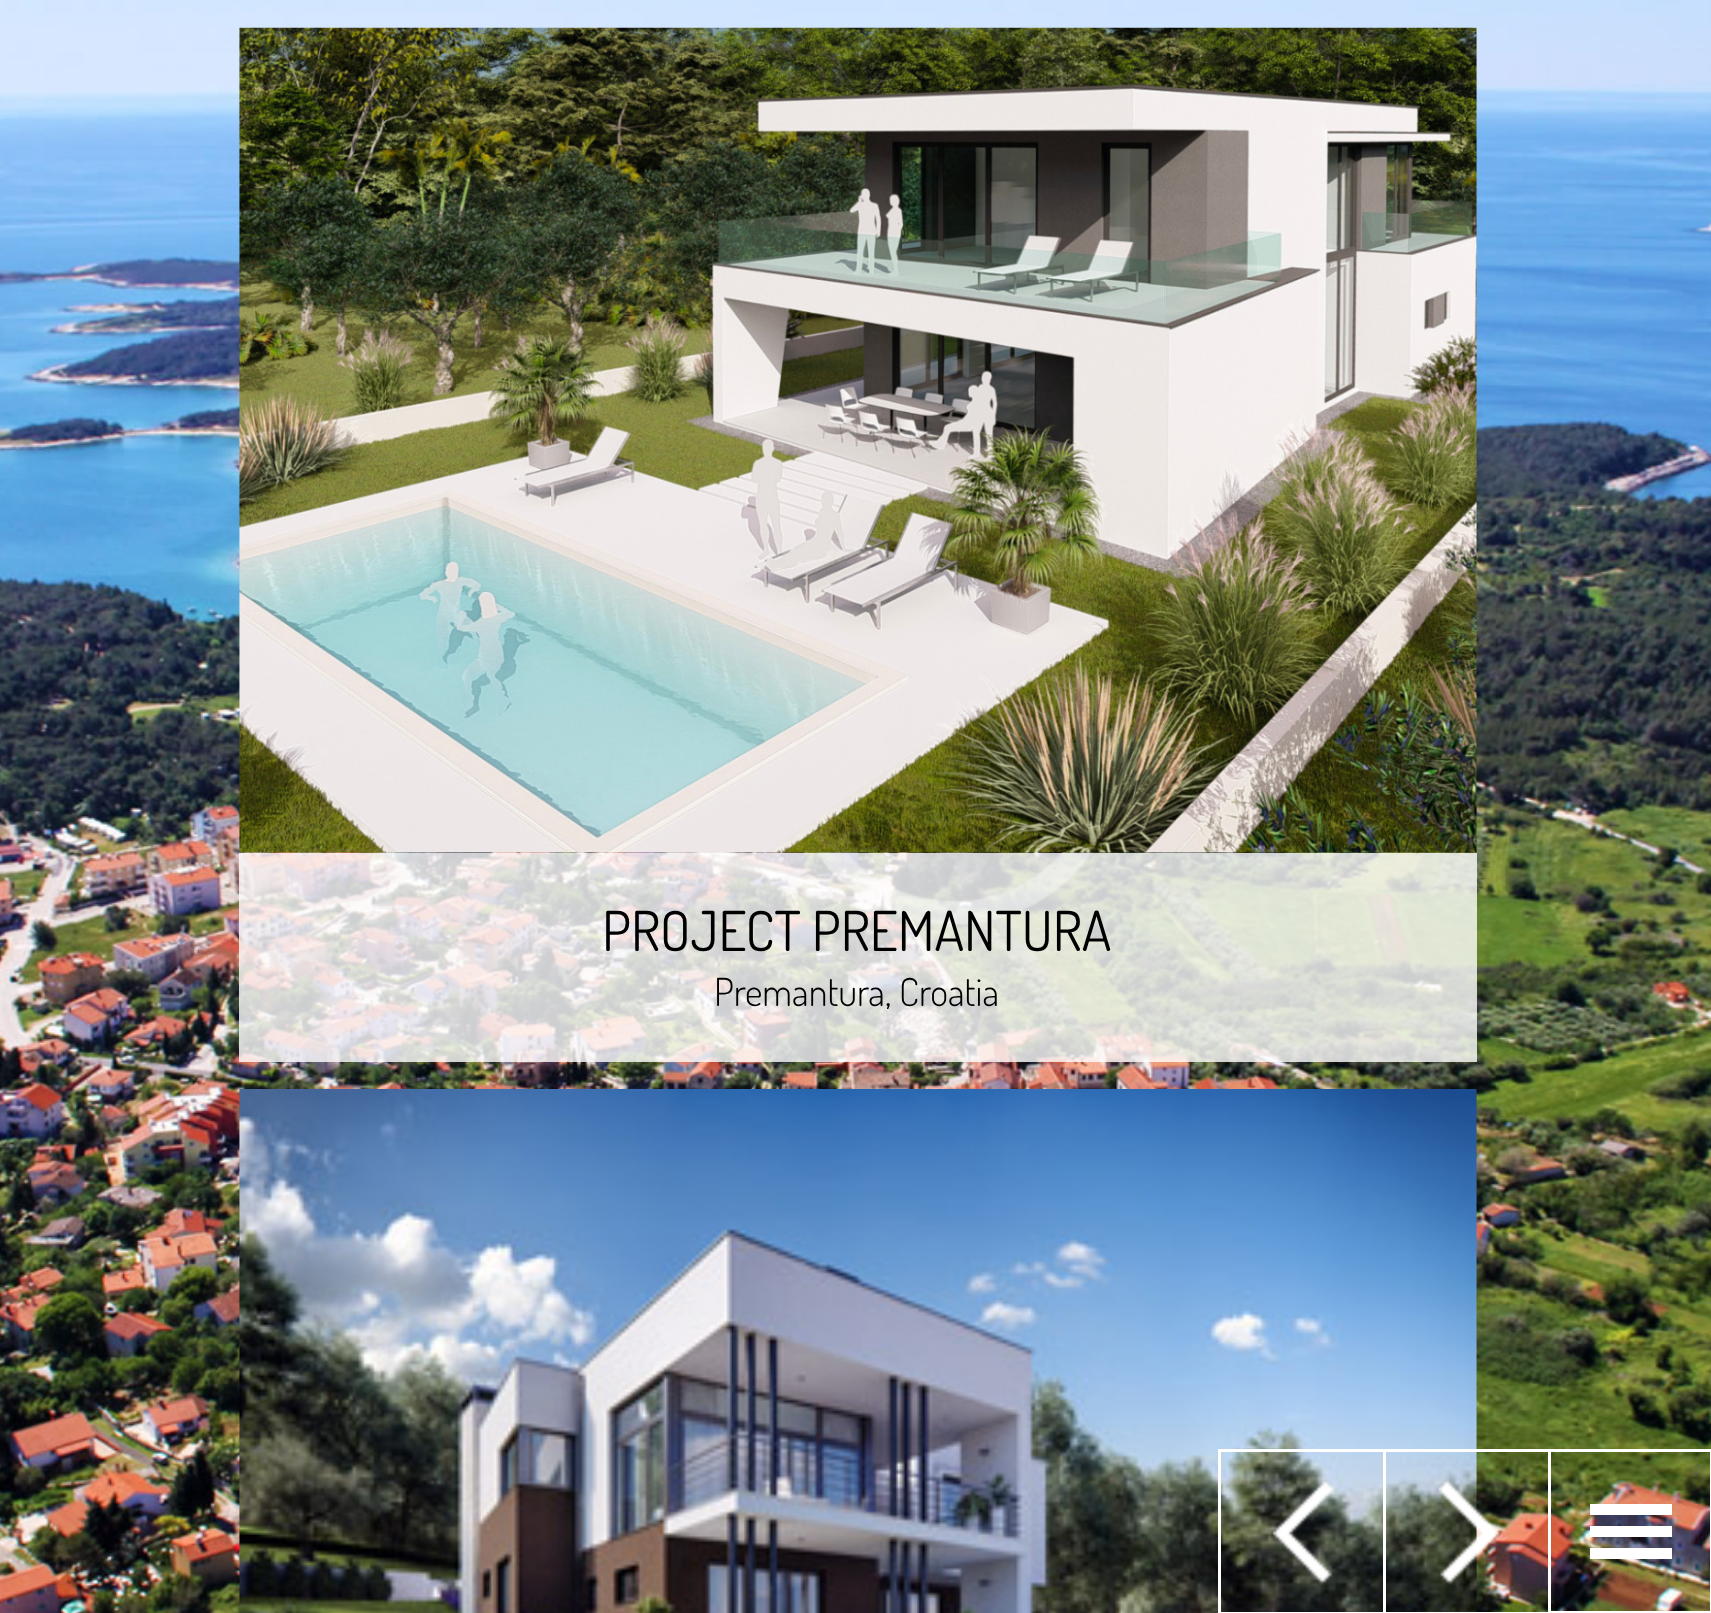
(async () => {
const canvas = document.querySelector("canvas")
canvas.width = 1711
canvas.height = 1613
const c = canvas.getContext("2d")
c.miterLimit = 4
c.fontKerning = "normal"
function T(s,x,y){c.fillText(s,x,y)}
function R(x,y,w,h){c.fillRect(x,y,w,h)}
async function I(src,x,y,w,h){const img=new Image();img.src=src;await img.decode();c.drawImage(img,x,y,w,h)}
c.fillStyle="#fff"
R(0,0,1711,1613)
await I("1.png",0,0,1711,1613)
await I("2.png",239,27,1238,826)
c.fillStyle="#ffffffcc"
R(239,853,1238,209)
c.font="55px Dosis"
c.fillStyle="#000"
T("PROJECT PREMANTURA",602,951)
c.font="300 38.5px Dosis"
T("Premantura, Croatia",714,1006)
await I("3.png",239,1089,1238,524)
c.fillStyle="#fff"
R(1218,1449,330,3)
R(1218,1612,330,1)
R(1218,1449,3,164)
await I("4.png",1272,1479,63,106)
R(1383,1449,3,164)
await I("5.png",1437,1479,63,106)
c.strokeStyle="#fff"
c.lineWidth=3
c.strokeRect(1549.5,1450.5,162,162)
R(1590,1526,82,11)
R(1590,1504,82,11)
R(1590,1548,82,11)
})()
